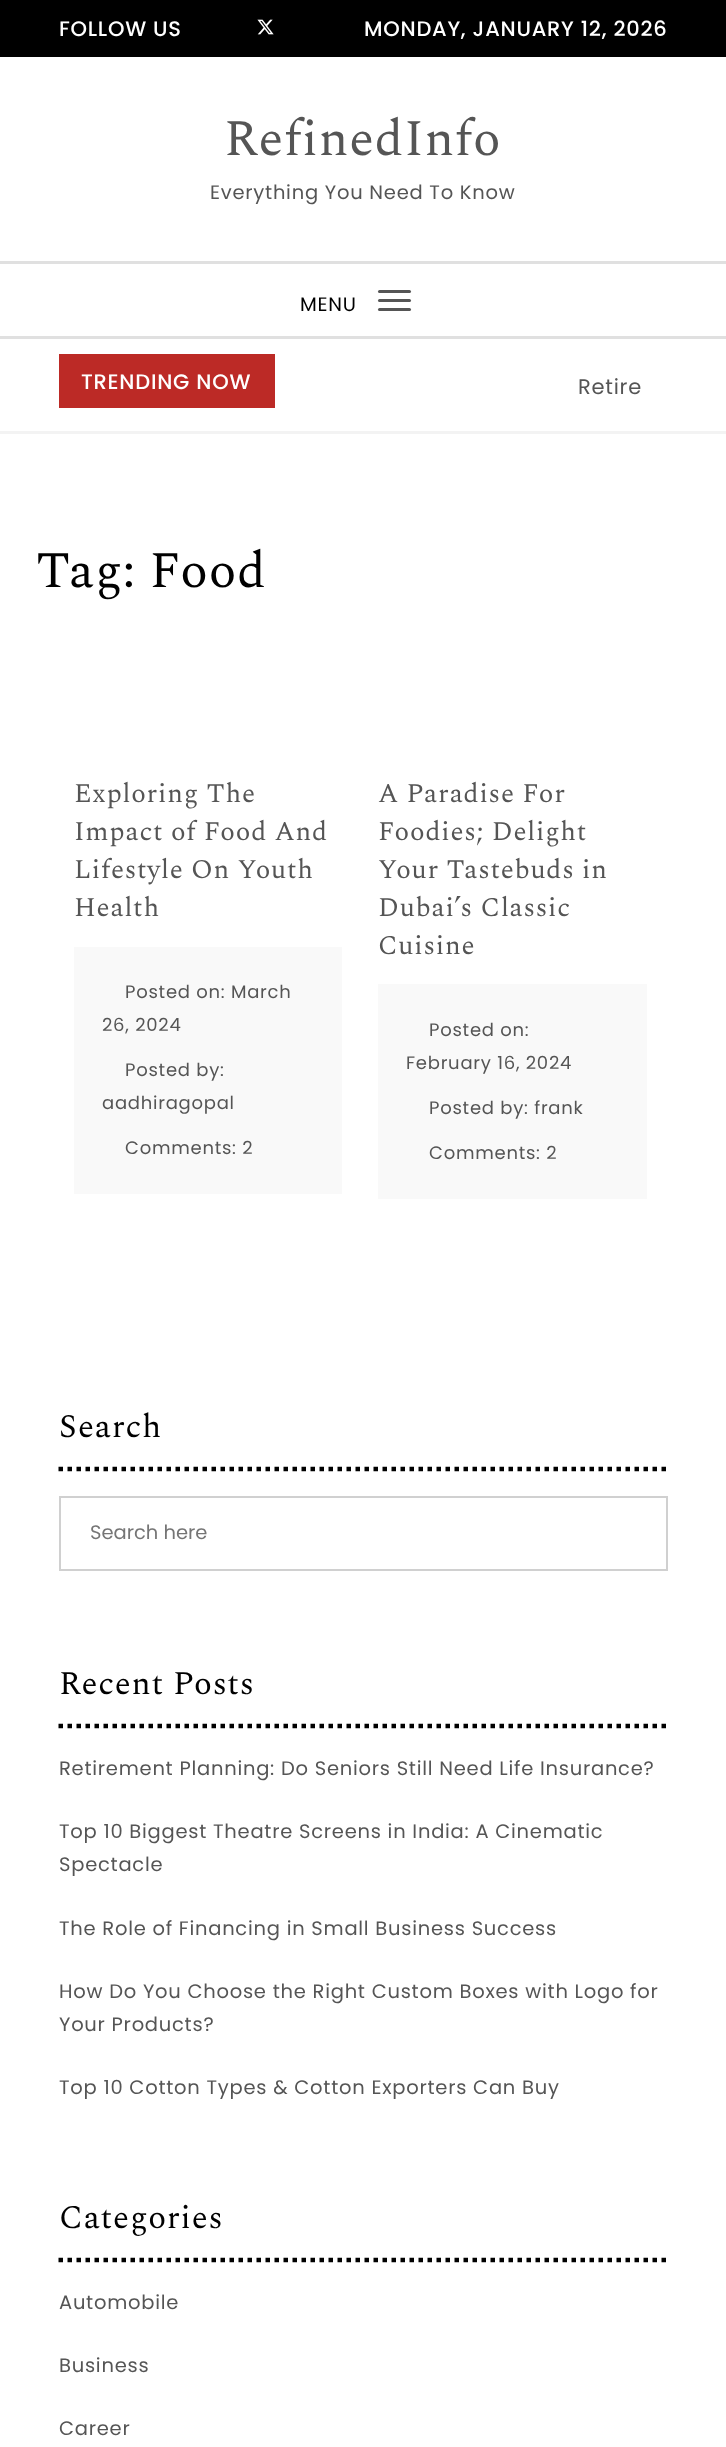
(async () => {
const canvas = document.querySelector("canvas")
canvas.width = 726
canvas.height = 2447
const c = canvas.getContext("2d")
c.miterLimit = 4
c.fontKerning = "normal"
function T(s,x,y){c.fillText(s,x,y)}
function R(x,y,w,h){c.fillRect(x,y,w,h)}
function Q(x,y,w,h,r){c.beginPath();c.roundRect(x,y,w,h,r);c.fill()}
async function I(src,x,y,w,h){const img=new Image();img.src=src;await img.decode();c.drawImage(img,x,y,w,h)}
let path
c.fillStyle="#fff"
R(0,0,726,2447)
c.fillStyle="#000"
R(0,0,726,57)
c.letterSpacing="0.75px"
c.font="500 21px Poppins"
c.fillStyle="#fff"
T("FOLLOW US",59,36)
await I("1.png",257,19,17,16)
T("MONDAY, JANUARY 12, 2026",364,36)
c.font="51px Spectral"
c.fillStyle="#555"
T("RefinedInfo",224,155)
c.font="19.5px Poppins"
T("Everything You Need To Know",210,199)
c.fillStyle="#e0e0e0"
R(0,261,726,3)
R(0,336,726,3)
c.fillStyle="#000"
T("MENU",300,311)
c.fillStyle="#555"
Q(378,290,33,3,1.5)
Q(378,299,33,3,1.5)
Q(378,308,33,3,1.5)
c.fillStyle="#f3f3f3"
R(0,431,726,3)
c.fillStyle="#bc2a26"
R(59,354,216,54)
c.font="500 21px Poppins"
c.fillStyle="#fff"
T("TRENDING NOW",81,389)
c.font="21px Poppins"
c.fillStyle="#555"
T("Retire",578,394)
c.font="51px Spectral"
c.fillStyle="#000"
T("Tag: Food",36,587)
c.font="27px Spectral"
c.fillStyle="#555"
T("Exploring The",74,802)
T("Impact of Food And",74,840)
T("Lifestyle On Youth",74,878)
T("Health",74,916)
c.fillStyle="#f9f9f9"
R(74,947,268,247)
c.font="18px Poppins"
c.fillStyle="#555"
T("Posted on: March",125,998)
T("26, 2024",102,1031)
T("Posted by:",125,1076)
T("aadhiragopal",102,1109)
T("Comments: 2",125,1154)
c.font="27px Spectral"
T("A Paradise For",378,802)
T("Foodies; Delight",378,840)
T("Your Tastebuds in",378,878)
T("Dubai’s Classic",378,916)
T("Cuisine",378,954)
c.fillStyle="#f9f9f9"
R(378,984,269,215)
c.font="18px Poppins"
c.fillStyle="#555"
T("Posted on:",429,1036)
T("February 16, 2024",406,1069)
T("Posted by: frank",429,1114)
T("Comments: 2",429,1159)
path = new Path2D("M58.5 1469h609")
c.strokeStyle="#000"
c.lineWidth=4.5
c.setLineDash([4.5,4.5])
c.stroke(path)
c.font="33px Spectral"
c.fillStyle="#000"
T("Search",59,1437)
c.strokeStyle="#d0d0d0"
c.lineWidth=2
c.setLineDash([])
c.strokeRect(60,1497,607,73)
c.letterSpacing="0px"
c.font="19.5px Poppins"
c.fillStyle="#757575"
T("Search here",90,1539)
path = new Path2D("M58.5 1726h609")
c.strokeStyle="#000"
c.lineWidth=4.5
c.setLineDash([4.5,4.5])
c.stroke(path)
c.letterSpacing="0.75px"
c.font="33px Spectral"
c.fillStyle="#000"
T("Recent Posts",59,1694)
c.font="19.5px Poppins"
c.fillStyle="#555"
T("Retirement Planning: Do Seniors Still Need Life Insurance?",59,1775)
T("Top 10 Biggest Theatre Screens in India: A Cinematic",59,1838)
T("Spectacle",59,1871)
T("The Role of Financing in Small Business Success",59,1935)
T("How Do You Choose the Right Custom Boxes with Logo for",59,1998)
T("Your Products?",59,2031)
T("Top 10 Cotton Types & Cotton Exporters Can Buy",59,2094)
path = new Path2D("M58.5 2260h609")
c.stroke(path)
c.font="33px Spectral"
c.fillStyle="#000"
T("Categories",59,2228)
c.font="19.5px Poppins"
c.fillStyle="#555"
T("Automobile",59,2309)
T("Business",59,2372)
T("Career",59,2435)
})()
